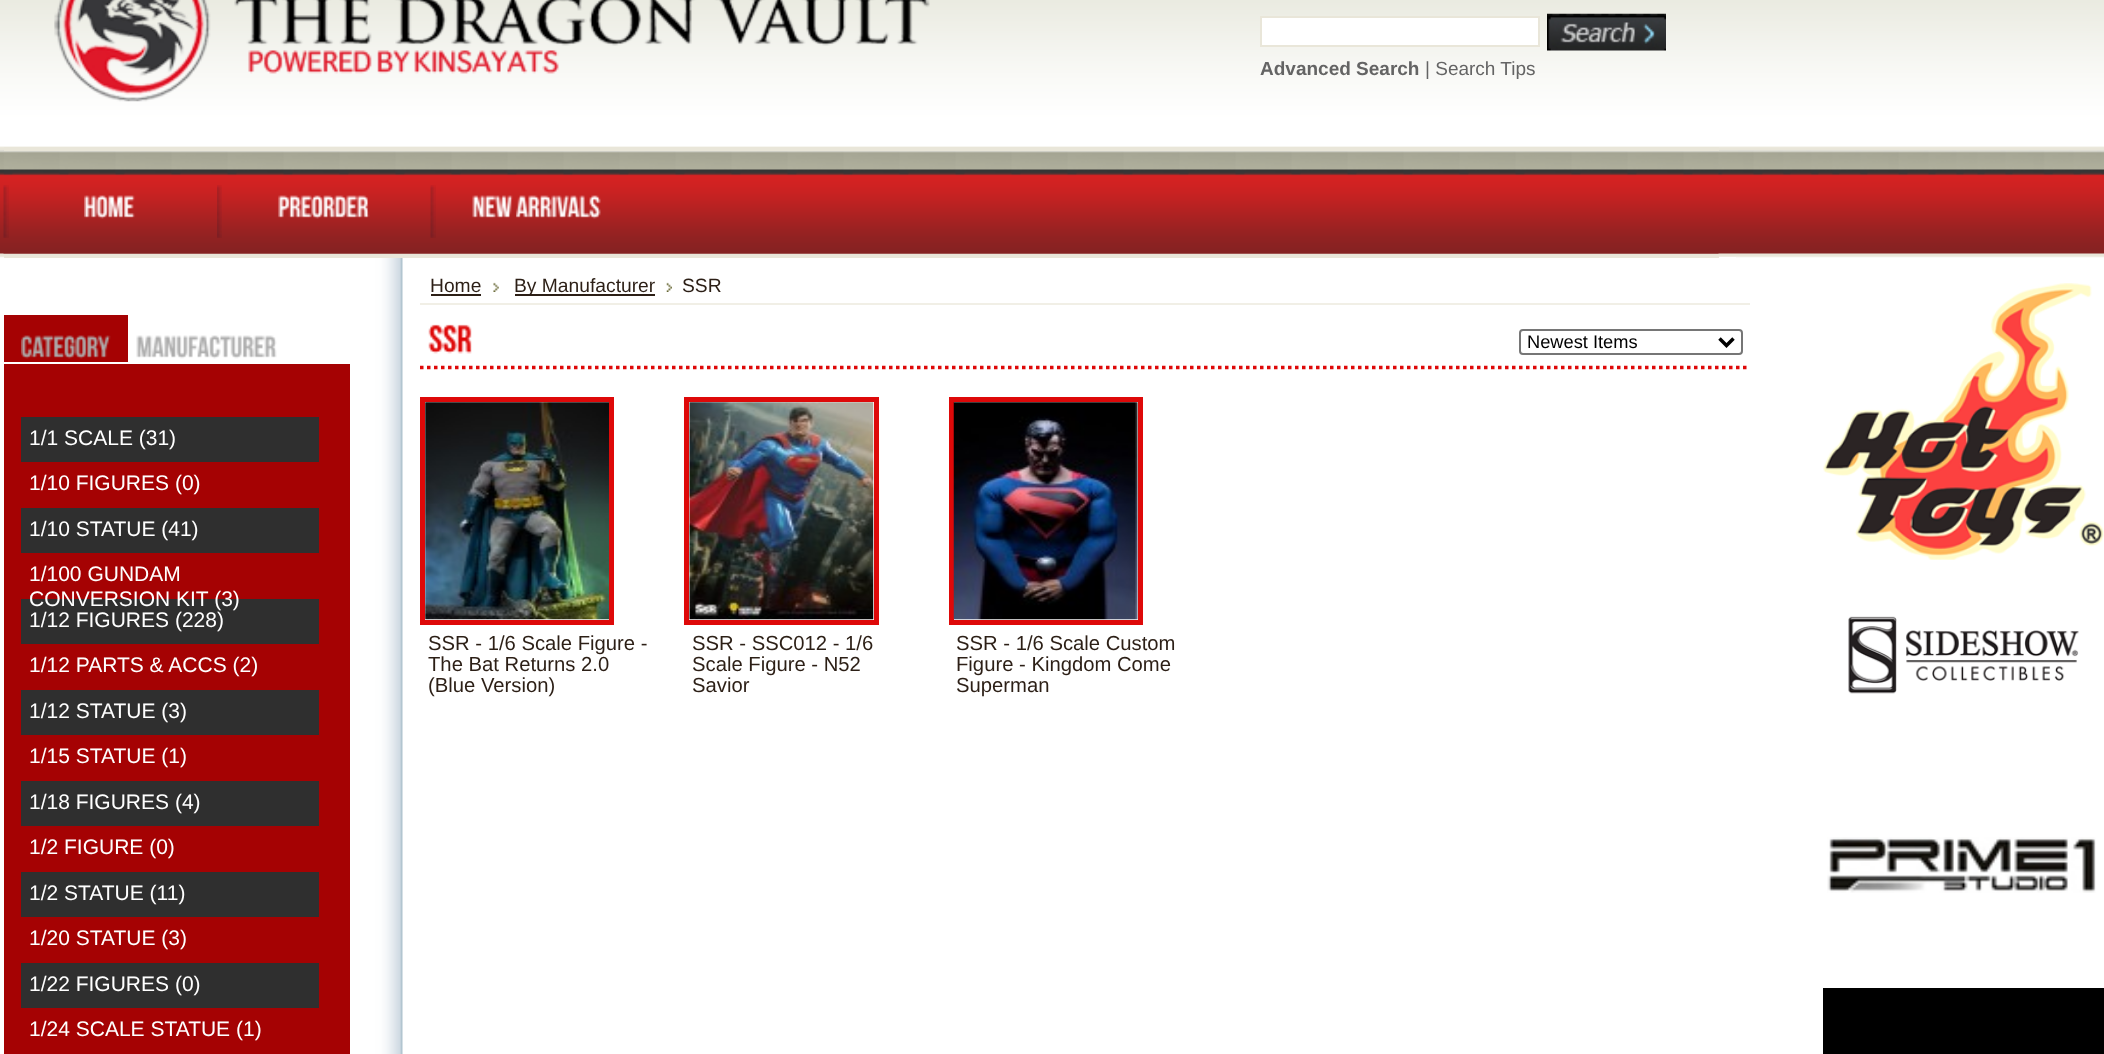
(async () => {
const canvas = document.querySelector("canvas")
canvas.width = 2104
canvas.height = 1054
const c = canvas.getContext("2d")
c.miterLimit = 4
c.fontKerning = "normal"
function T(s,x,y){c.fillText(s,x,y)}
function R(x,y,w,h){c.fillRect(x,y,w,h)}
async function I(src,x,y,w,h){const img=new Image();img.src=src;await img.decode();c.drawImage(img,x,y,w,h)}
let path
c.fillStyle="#fff"
R(0,0,2104,1054)
await I("1.png",0,0,2104,258)
await I("2.png",54,0,876,102)
c.beginPath()
c.rect(1261,17,278,29)
c.fill()
c.strokeStyle="#e9e6d9"
c.lineWidth=2
c.stroke()
await I("3.png",1547,13,119,38)
c.font="bold 19px Liberation Sans"
c.fillStyle="#646464"
T("Advanced Search",1260,75)
c.font="19px Liberation Sans"
T("| Search Tips",1425,75)
await I("4.png",3,150,1716,104)
c.fillStyle="#e9e6d9"
R(4,147,1715,4)
await I("14.png",367,257,1369,797)
R(4,256,1715,2)
await I("5.png",3,185,6,53)
await I("6.png",84,195,51,24)
await I("7.png",217,185,5,53)
await I("8.png",278,195,92,24)
await I("9.png",430,185,6,53)
await I("10.png",472,195,41,23)
await I("11.png",516,195,85,24)
c.fillStyle="#a50203"
R(4,315,124,47)
await I("12.png",21,335,90,24)
await I("13.png",136,335,141,24)
R(4,364,346,690)
c.fillStyle="#2f2f2f"
R(21,417,298,45)
c.font="21px Liberation Sans"
c.fillStyle="#fff"
T("1/1 SCALE (31)",29,445)
T("1/10 FIGURES (0)",29,490)
c.fillStyle="#2f2f2f"
R(21,508,298,45)
c.fillStyle="#fff"
T("1/10 STATUE (41)",29,536)
T("1/100 GUNDAM",29,581)
c.fillStyle="#2f2f2f"
R(21,599,298,45)
c.fillStyle="#fff"
T("CONVERSION KIT (3)",29,606)
T("1/12 FIGURES (228)",29,627)
T("1/12 PARTS & ACCS (2)",29,672)
c.fillStyle="#2f2f2f"
R(21,690,298,45)
c.fillStyle="#fff"
T("1/12 STATUE (3)",29,718)
T("1/15 STATUE (1)",29,763)
c.fillStyle="#2f2f2f"
R(21,781,298,45)
c.fillStyle="#fff"
T("1/18 FIGURES (4)",29,809)
T("1/2 FIGURE (0)",29,854)
c.fillStyle="#2f2f2f"
R(21,872,298,45)
c.fillStyle="#fff"
T("1/2 STATUE (11)",29,900)
T("1/20 STATUE (3)",29,945)
c.fillStyle="#2f2f2f"
R(21,963,298,45)
c.fillStyle="#fff"
T("1/22 FIGURES (0)",29,991)
T("1/24 SCALE STATUE (1)",29,1036)
c.fillStyle="#f1efe6"
R(420,303,1330,2)
c.font="19.25px Liberation Sans"
c.fillStyle="#2c1f16"
T("Home",430,292)
R(431,294,50,2)
await I("15.png",493,282,6,10)
R(515,294,140,2)
T("By Manufacturer",514,292)
await I("16.png",666,282,6,10)
T("SSR",682,292)
path = new Path2D("M420 367.5h1330")
c.strokeStyle="#de0909"
c.lineWidth=3.5
c.setLineDash([3.5,3.5])
c.stroke(path)
await I("17.png",428,324,44,30)
c.beginPath()
c.roundRect(1520,330,222,24,3)
c.strokeStyle="#767676"
c.lineWidth=2
c.setLineDash([])
c.stroke()
path = new Path2D("M1719.5 338.5l7 7l7-7")
c.strokeStyle="#000"
c.lineWidth=3.5
c.stroke(path)
c.font="18.25px Liberation Sans"
c.fillStyle="#000"
T("Newest Items",1527,348)
c.strokeStyle="#de0909"
c.lineWidth=5
c.strokeRect(422.5,399.5,189,223)
await I("18.png",425,402,184,218)
c.font="20.25px Liberation Sans"
c.fillStyle="#2c1f16"
T("SSR - 1/6 Scale Figure -",428,650)
T("The Bat Returns 2.0",428,671)
T("(Blue Version)",428,692)
c.strokeRect(686.5,399.5,190,223)
await I("19.png",689,402,185,218)
T("SSR - SSC012 - 1/6",692,650)
T("Scale Figure - N52",692,671)
T("Savior",692,692)
c.strokeRect(951.5,399.5,189,223)
await I("20.png",953,402,185,218)
T("SSR - 1/6 Scale Custom",956,650)
T("Figure - Kingdom Come",956,671)
T("Superman",956,692)
await I("21.png",1823,283,281,277)
await I("22.png",1848,616,231,78)
await I("23.png",1827,837,269,56)
c.fillStyle="#000"
R(1823,988,281,66)
})()
